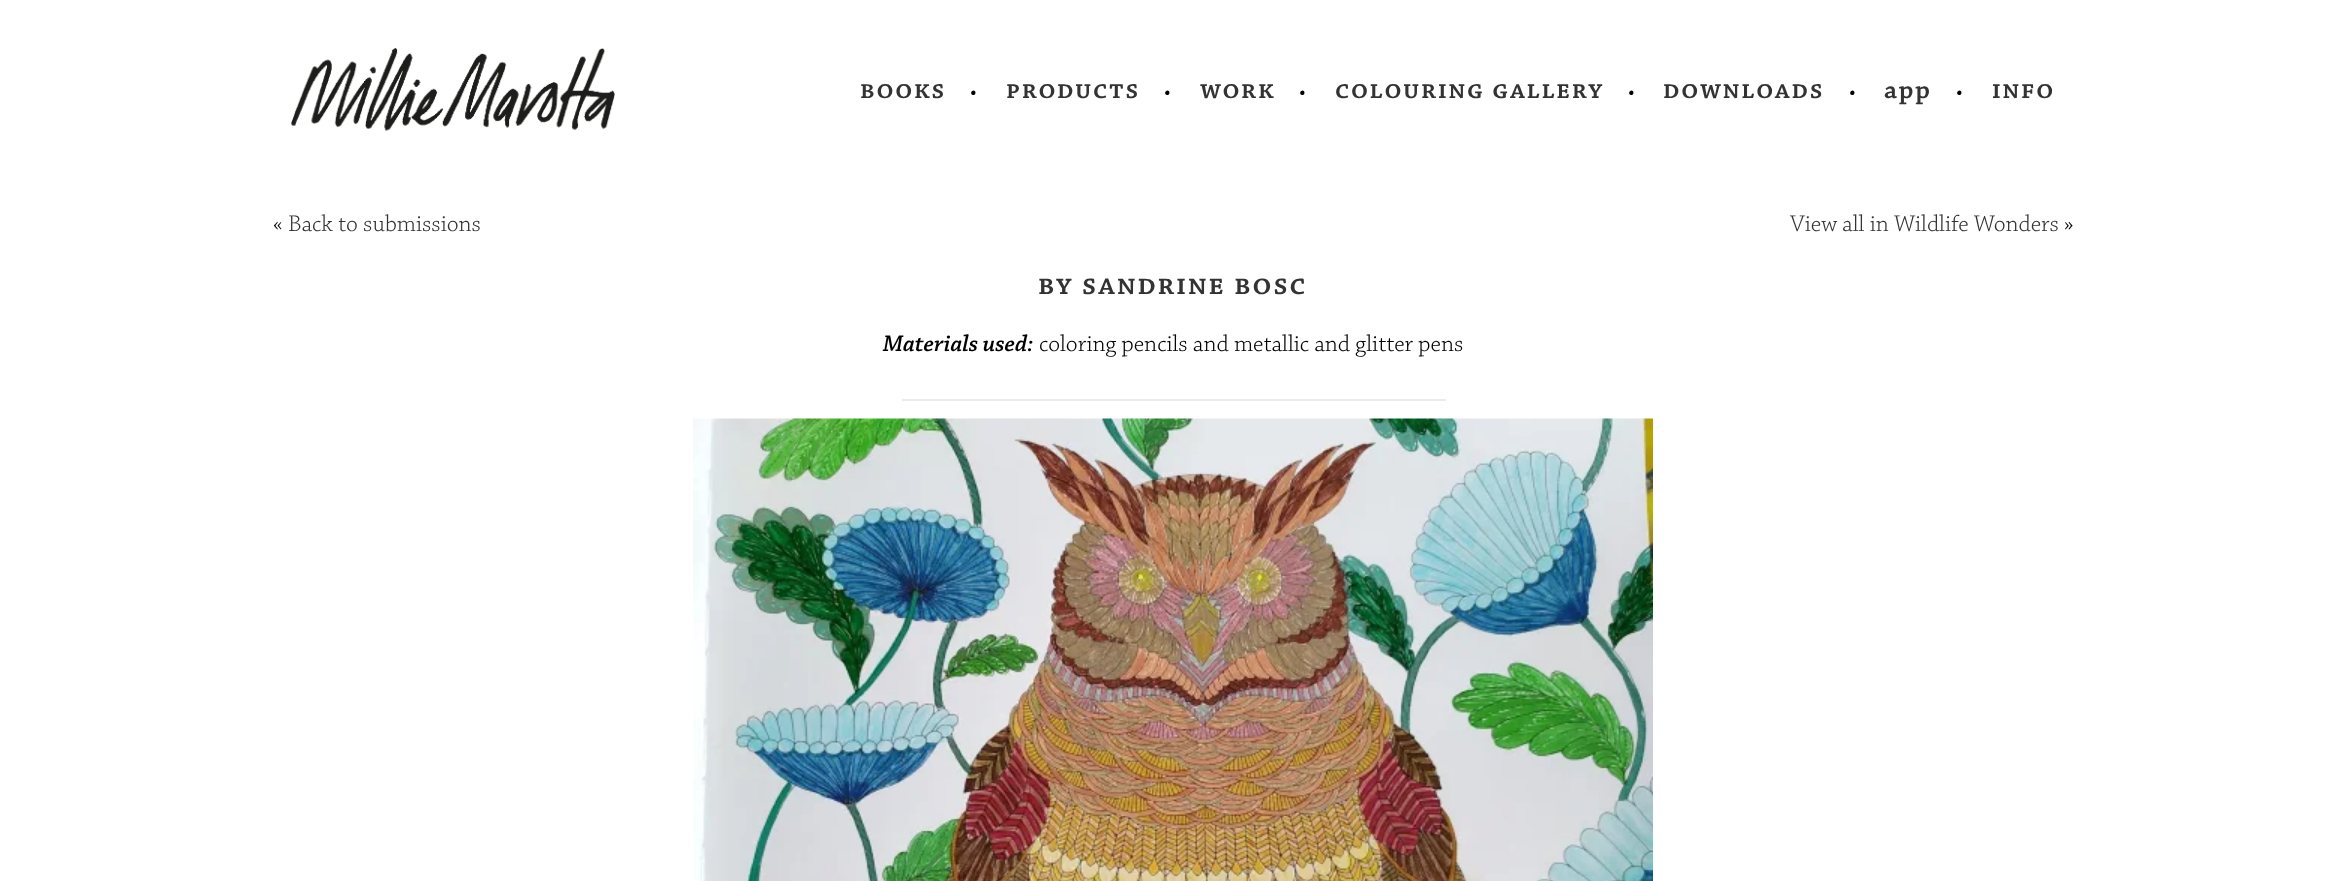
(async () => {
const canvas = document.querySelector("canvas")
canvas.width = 2345
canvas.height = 881
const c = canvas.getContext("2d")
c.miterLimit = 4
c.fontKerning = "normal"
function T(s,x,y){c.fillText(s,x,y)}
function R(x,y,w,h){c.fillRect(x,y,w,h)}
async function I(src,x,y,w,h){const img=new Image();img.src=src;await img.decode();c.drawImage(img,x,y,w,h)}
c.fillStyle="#fff"
R(0,0,2345,881)
await I("1.png",291,48,324,83)
c.letterSpacing="1.7px"
c.font="600 27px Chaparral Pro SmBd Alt"
c.fillStyle="#333"
T("books",860,98)
c.letterSpacing="0px"
c.font="300 24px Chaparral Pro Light"
c.fillStyle="#000"
T("•",970,99)
c.letterSpacing="1.7px"
c.font="600 27px Chaparral Pro SmBd Alt"
c.fillStyle="#333"
T("products",1006,98)
c.letterSpacing="0px"
c.font="300 24px Chaparral Pro Light"
c.fillStyle="#000"
T("•",1164,99)
c.letterSpacing="1.7px"
c.font="600 27px Chaparral Pro SmBd Alt"
c.fillStyle="#333"
T("work",1200,98)
c.letterSpacing="0px"
c.font="300 24px Chaparral Pro Light"
c.fillStyle="#000"
T("•",1299,99)
c.letterSpacing="1.7px"
c.font="600 27px Chaparral Pro SmBd Alt"
c.fillStyle="#333"
T("colouring gallery",1335,98)
c.letterSpacing="0px"
c.font="300 24px Chaparral Pro Light"
c.fillStyle="#000"
T("•",1628,99)
c.letterSpacing="1.7px"
c.font="600 27px Chaparral Pro SmBd Alt"
c.fillStyle="#333"
T("downloads",1663,98)
c.letterSpacing="0px"
c.font="300 24px Chaparral Pro Light"
c.fillStyle="#000"
T("•",1849,99)
c.letterSpacing="1.7px"
c.font="600 27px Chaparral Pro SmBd"
c.fillStyle="#333"
T("app",1884,98)
c.letterSpacing="0px"
c.font="300 24px Chaparral Pro Light"
c.fillStyle="#000"
T("•",1956,99)
c.letterSpacing="1.7px"
c.font="600 27px Chaparral Pro SmBd Alt"
c.fillStyle="#333"
T("info",1992,98)
c.letterSpacing="0px"
c.font="300 24px Chaparral Pro Light"
c.fillStyle="#000"
T("«",273,231)
c.fillStyle="#333"
T("Back to submissions",288,231)
T("View all in Wildlife Wonders",1790,231)
c.fillStyle="#000"
T("»",2064,231)
c.letterSpacing="1.9px"
c.font="600 30px Chaparral Pro SmBd Alt"
c.fillStyle="#333"
T("by sandrine bosc",1038,294)
c.letterSpacing="0px"
c.font="italic 600 24px Chaparral Pro SmBd"
c.fillStyle="#000"
T("Materials used:",883,351)
c.font="300 24px Chaparral Pro Light"
T("coloring pencils and metallic and glitter pens",1039,351)
c.fillStyle="#ebebeb"
R(902,399,544,2)
await I("2.png",693,418,960,463)
})()
